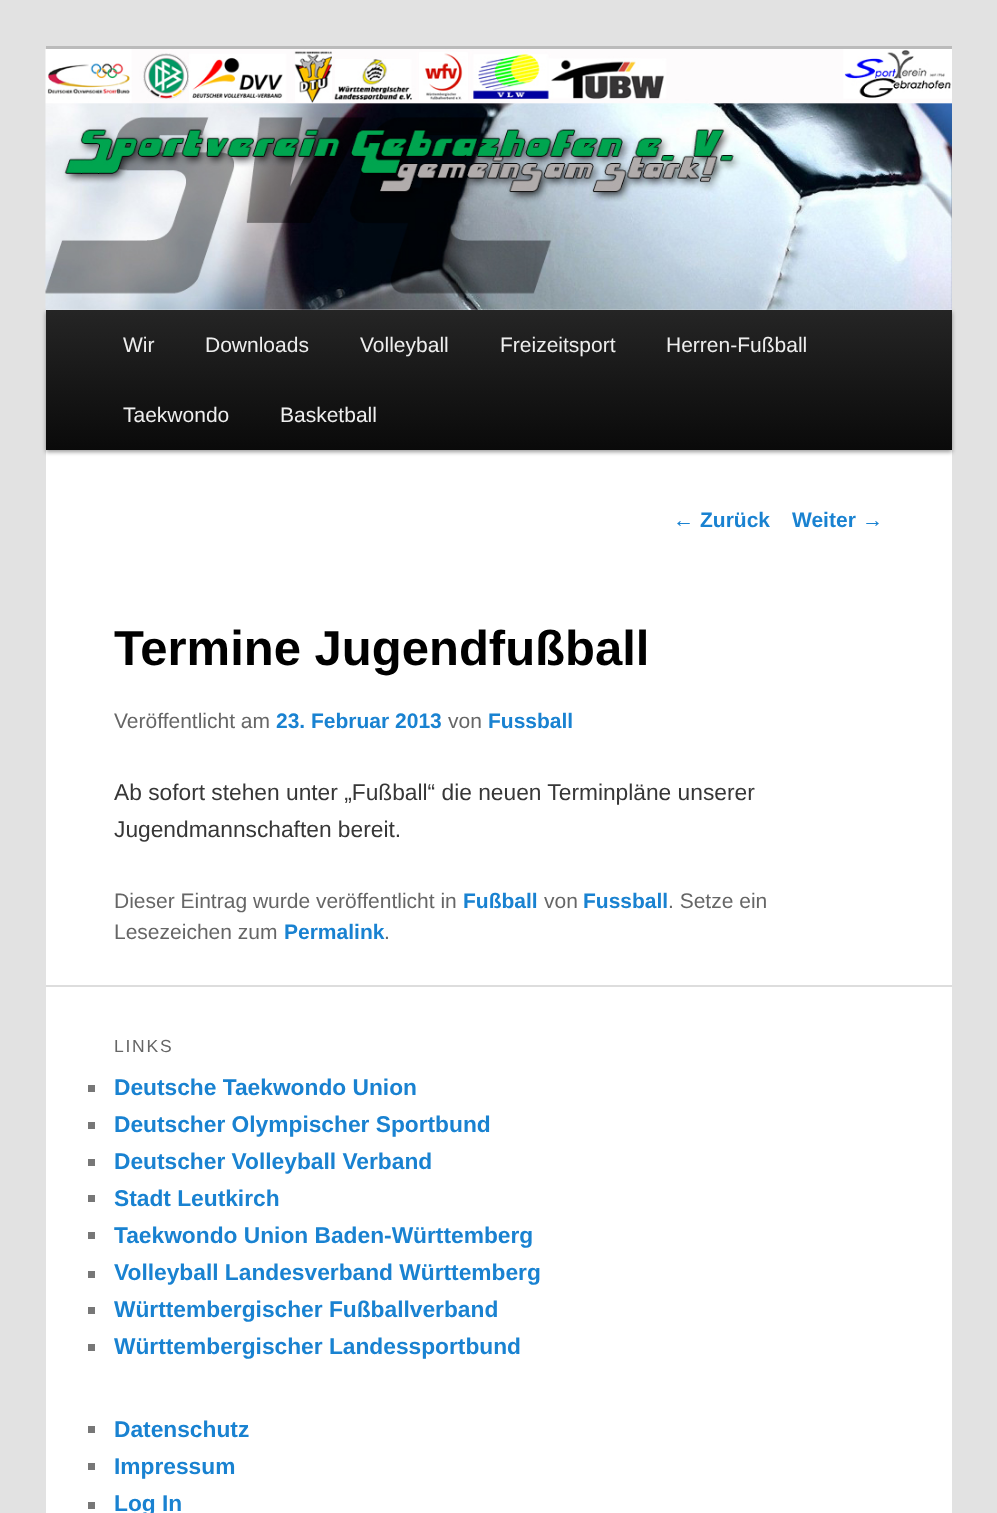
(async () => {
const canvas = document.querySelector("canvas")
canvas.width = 997
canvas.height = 1513
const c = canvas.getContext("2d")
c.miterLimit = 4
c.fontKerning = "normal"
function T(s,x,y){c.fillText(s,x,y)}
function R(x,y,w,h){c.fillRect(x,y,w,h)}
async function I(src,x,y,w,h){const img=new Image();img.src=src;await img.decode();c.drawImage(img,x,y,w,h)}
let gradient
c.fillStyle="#e2e2e2"
R(0,0,997,1513)
c.fillStyle="#fff"
R(46,309,906,1204)
c.fillStyle="#bbb"
R(46,46,906,3)
c.fillStyle="#00000066"
c.filter="blur(2px)"
c.beginPath()
c.rect(46,312,906,140)
c.fill()
c.filter="none"
await I("1.png",45,49,907,261)
gradient = c.createLinearGradient(499,310,499,450)
gradient.addColorStop(0,"#252525")
gradient.addColorStop(1,"#0a0a0a")
c.fillStyle = gradient
R(46,310,906,140)
c.font="21px Liberation Sans"
c.fillStyle="#eee"
T("Wir",123,352)
T("Downloads",205,352)
T("Volleyball",360,352)
T("Freizeitsport",500,352)
T("Herren-Fußball",666,352)
T("Taekwondo",123,422)
T("Basketball",280,422)
c.fillStyle="#1982d1"
T("←",673,527)
c.font="bold 21px Liberation Sans"
T("Zurück",700,527)
T("Weiter",792,527)
c.font="21px Liberation Sans"
T("→",862,527)
c.font="bold 49px Liberation Sans"
c.fillStyle="#000"
T("Termine Jugendfußball",114,665)
c.font="21px Liberation Sans"
c.fillStyle="#666"
T("Veröffentlicht am",114,728)
c.font="bold 21px Liberation Sans"
c.fillStyle="#1982d1"
T("23. Februar 2013",276,728)
c.font="21px Liberation Sans"
c.fillStyle="#666"
T("von",448,728)
c.font="bold 21px Liberation Sans"
c.fillStyle="#1982d1"
T("Fussball",488,728)
c.font="22.75px Liberation Sans"
c.fillStyle="#373737"
T("Ab sofort stehen unter „Fußball“ die neuen Terminpläne unserer",114,800)
T("Jugendmannschaften bereit.",114,837)
c.font="21px Liberation Sans"
c.fillStyle="#666"
T("Dieser Eintrag wurde veröffentlicht in",114,908)
c.font="bold 21px Liberation Sans"
c.fillStyle="#1982d1"
T("Fußball",463,908)
c.font="21px Liberation Sans"
c.fillStyle="#666"
T("von",544,908)
c.font="bold 21px Liberation Sans"
c.fillStyle="#1982d1"
T("Fussball",583,908)
c.font="21px Liberation Sans"
c.fillStyle="#666"
T(". Setze ein",668,908)
T("Lesezeichen zum",114,939)
c.font="bold 21px Liberation Sans"
c.fillStyle="#1982d1"
T("Permalink",284,939)
c.font="21px Liberation Sans"
c.fillStyle="#666"
T(".",384,939)
c.fillStyle="#ddd"
R(46,985,906,2)
c.letterSpacing="1.75px"
c.font="17.5px Liberation Sans"
c.fillStyle="#666"
T("LINKS",114,1052)
c.fillStyle="#777"
R(88,1085,7,7)
c.letterSpacing="0px"
c.font="bold 22.75px Liberation Sans"
c.fillStyle="#1982d1"
T("Deutsche Taekwondo Union",114,1095)
c.fillStyle="#777"
R(88,1122,7,7)
c.fillStyle="#1982d1"
T("Deutscher Olympischer Sportbund",114,1132)
c.fillStyle="#777"
R(88,1159,7,7)
c.fillStyle="#1982d1"
T("Deutscher Volleyball Verband",114,1169)
c.fillStyle="#777"
R(88,1195,7,7)
c.fillStyle="#1982d1"
T("Stadt Leutkirch",114,1206)
c.fillStyle="#777"
R(88,1232,7,7)
c.fillStyle="#1982d1"
T("Taekwondo Union Baden-Württemberg",114,1243)
c.fillStyle="#777"
R(88,1271,7,7)
c.fillStyle="#1982d1"
T("Volleyball Landesverband Württemberg",114,1280)
c.fillStyle="#777"
R(88,1307,7,7)
c.fillStyle="#1982d1"
T("Württembergischer Fußballverband",114,1317)
c.fillStyle="#777"
R(88,1344,7,7)
c.fillStyle="#1982d1"
T("Württembergischer Landessportbund",114,1354)
c.fillStyle="#777"
R(88,1426,7,7)
c.fillStyle="#1982d1"
T("Datenschutz",114,1437)
c.fillStyle="#777"
R(88,1463,7,7)
c.fillStyle="#1982d1"
T("Impressum",114,1474)
c.fillStyle="#777"
R(88,1502,7,7)
c.fillStyle="#1982d1"
T("Log In",114,1511)
})()
